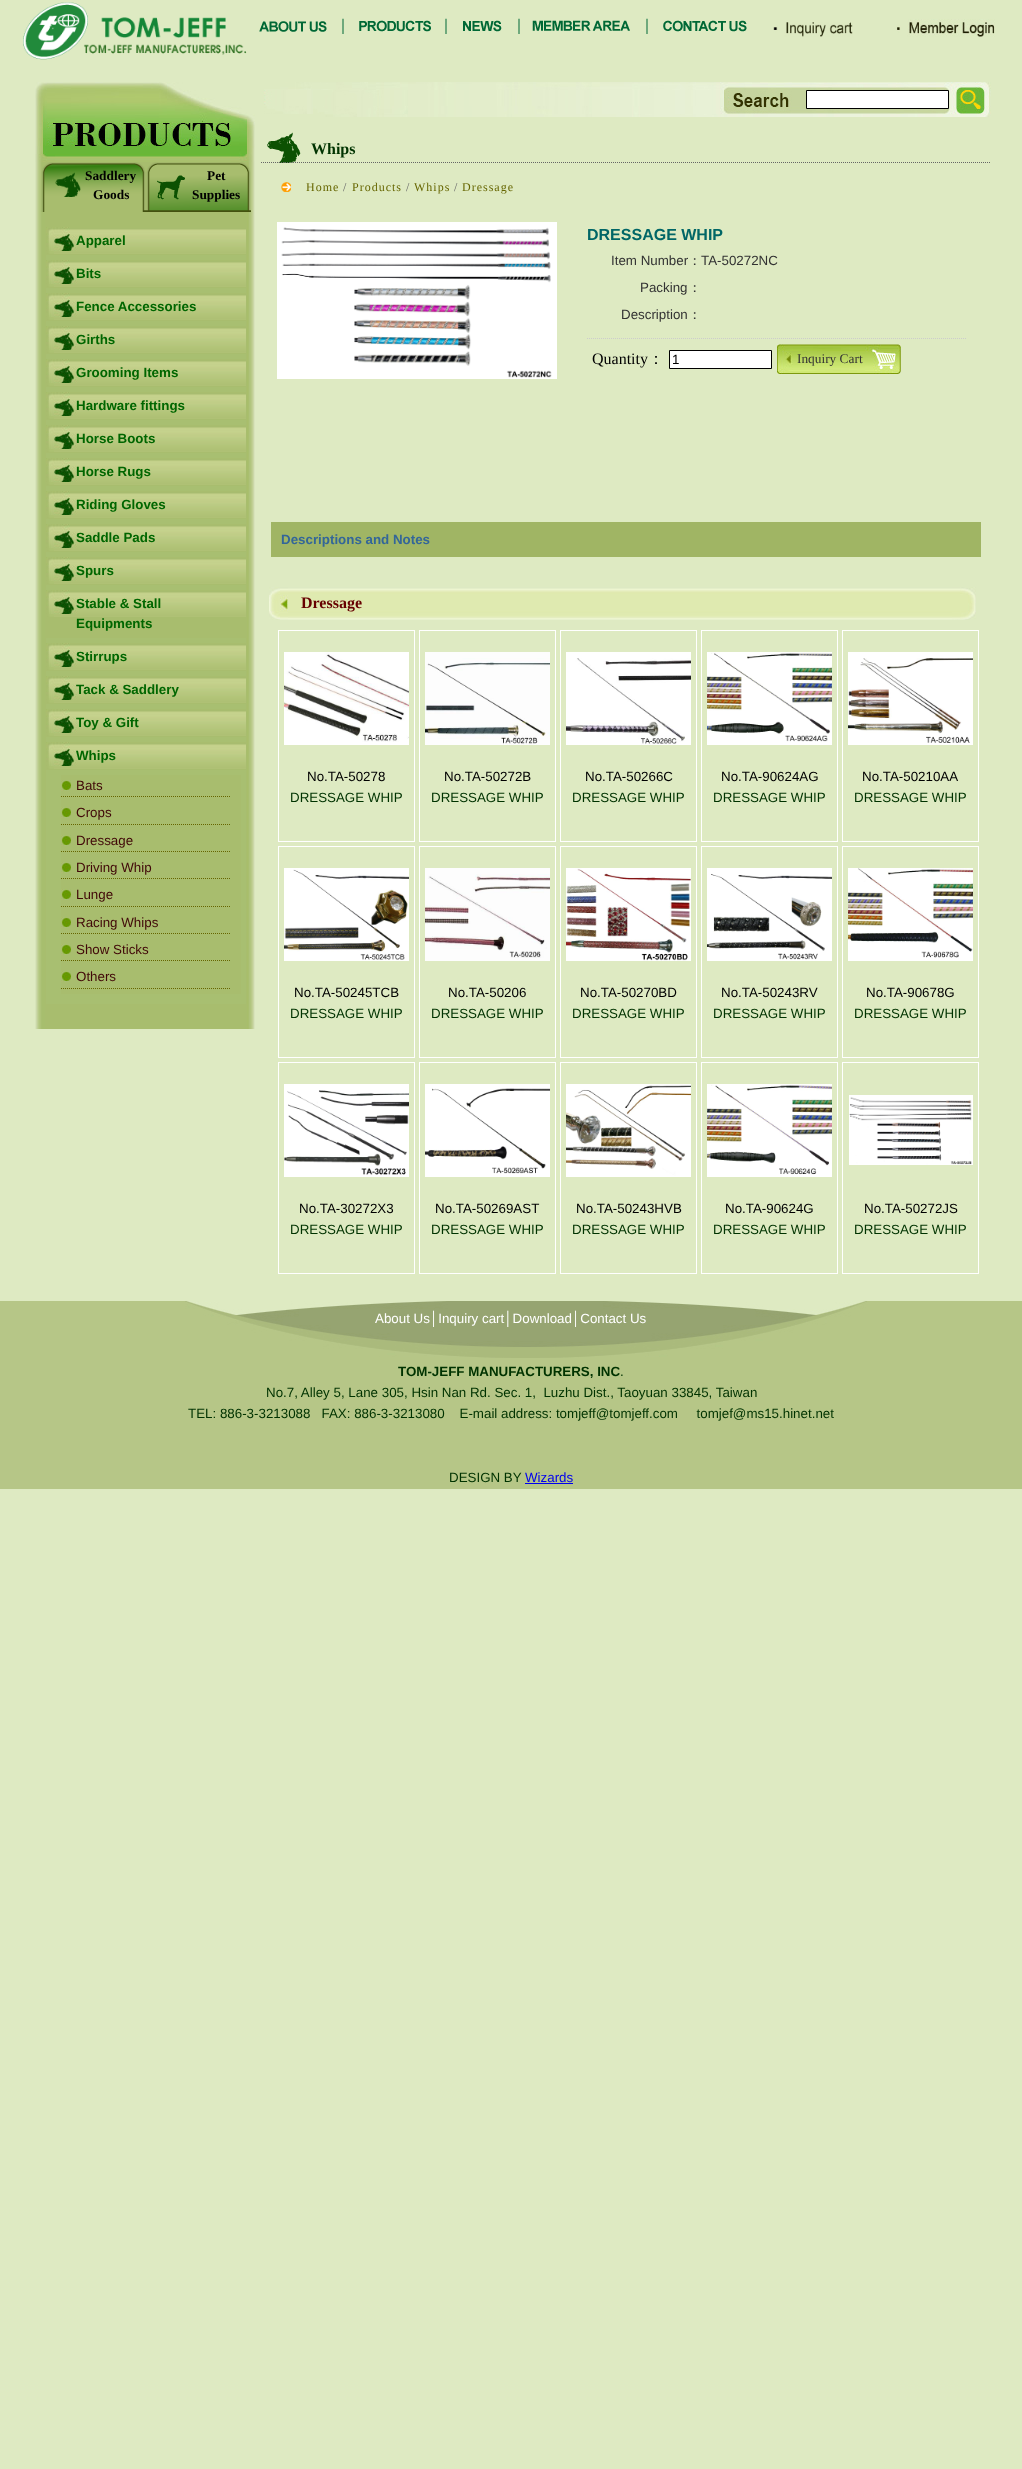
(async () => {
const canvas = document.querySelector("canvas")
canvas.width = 1022
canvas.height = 2469
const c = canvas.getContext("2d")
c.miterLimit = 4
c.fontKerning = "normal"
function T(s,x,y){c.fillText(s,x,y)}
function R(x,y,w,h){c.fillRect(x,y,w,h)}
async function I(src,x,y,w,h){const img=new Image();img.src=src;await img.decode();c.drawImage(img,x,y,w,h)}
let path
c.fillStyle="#deeac2"
R(0,0,1022,2469)
await I("1.png",23,2,224,58)
await I("2.png",259,21,68,11)
await I("3.png",342,18,2,16)
await I("4.png",359,20,72,12)
await I("3.png",445,18,2,16)
await I("5.png",463,20,39,12)
await I("3.png",518,18,2,16)
await I("6.png",532,20,98,11)
await I("3.png",646,18,2,16)
await I("7.png",663,20,84,12)
await I("8.png",773,22,80,15)
await I("9.png",897,19,98,18)
await I("10.png",35,162,220,867)
await I("11.png",35,82,220,80)
await I("12.png",41,162,105,50)
await I("13.png",55,172,26,25)
c.font="bold 13.35px Liberation Serif"
c.fillStyle="#000"
T("Saddlery",85,180)
T("Goods",93,199)
await I("14.png",146,162,105,50)
await I("15.png",157,175,28,25)
T("Pet",207,180)
T("Supplies",192,199)
c.fillStyle="#a8bf71"
R(46,255,200,749)
await I("16.png",46,227,200,27)
c.font="bold 13.35px Liberation Sans"
c.fillStyle="#060"
T("Apparel",76,245)
c.fillStyle="#a8bd6e"
R(46,287,200,1)
await I("16.png",46,260,200,27)
c.fillStyle="#060"
T("Bits",76,278)
c.fillStyle="#a8bd6e"
R(46,320,200,1)
await I("16.png",46,293,200,27)
c.fillStyle="#060"
T("Fence Accessories",76,311)
c.fillStyle="#a8bd6e"
R(46,353,200,1)
await I("16.png",46,326,200,27)
c.fillStyle="#060"
T("Girths",76,344)
c.fillStyle="#a8bd6e"
R(46,386,200,1)
await I("16.png",46,359,200,27)
c.fillStyle="#060"
T("Grooming Items",76,377)
c.fillStyle="#a8bd6e"
R(46,419,200,1)
await I("16.png",46,392,200,27)
c.fillStyle="#060"
T("Hardware fittings",76,410)
c.fillStyle="#a8bd6e"
R(46,452,200,1)
await I("16.png",46,425,200,27)
c.fillStyle="#060"
T("Horse Boots",76,443)
c.fillStyle="#a8bd6e"
R(46,485,200,1)
await I("16.png",46,458,200,27)
c.fillStyle="#060"
T("Horse Rugs",76,476)
c.fillStyle="#a8bd6e"
R(46,518,200,1)
await I("16.png",46,491,200,27)
c.fillStyle="#060"
T("Riding Gloves",76,509)
c.fillStyle="#a8bd6e"
R(46,551,200,1)
await I("16.png",46,524,200,27)
c.fillStyle="#060"
T("Saddle Pads",76,542)
c.fillStyle="#a8bd6e"
R(46,584,200,1)
await I("16.png",46,557,200,27)
c.fillStyle="#060"
T("Spurs",76,575)
c.fillStyle="#a8bd6e"
R(46,617,200,21)
await I("16.png",46,590,200,27)
c.fillStyle="#060"
T("Stable & Stall",76,608)
T("Equipments",76,628)
c.fillStyle="#a8bd6e"
R(46,670,200,1)
await I("16.png",46,643,200,27)
c.fillStyle="#060"
T("Stirrups",76,661)
c.fillStyle="#a8bd6e"
R(46,703,200,1)
await I("16.png",46,676,200,27)
c.fillStyle="#060"
T("Tack & Saddlery",76,694)
c.fillStyle="#a8bd6e"
R(46,736,200,1)
await I("16.png",46,709,200,27)
c.fillStyle="#060"
T("Toy & Gift",76,727)
c.fillStyle="#a8bd6e"
R(46,769,200,1)
await I("16.png",46,742,200,27)
c.fillStyle="#060"
T("Whips",76,760)
c.fillStyle="#a8bd6e"
R(61,775,180,219)
await I("17.png",61,780,10,11)
path = new Path2D("M61 796.5h170")
c.strokeStyle="#660"
c.setLineDash([1,1])
c.stroke(path)
c.font="13.35px Liberation Sans"
c.fillStyle="#410808"
T("Bats",76,790)
await I("17.png",61,807,10,11)
path = new Path2D("M61 824.5h170")
c.stroke(path)
T("Crops",76,817)
await I("17.png",61,835,10,11)
path = new Path2D("M61 851.5h170")
c.stroke(path)
T("Dressage",76,845)
await I("17.png",61,862,10,11)
path = new Path2D("M61 878.5h170")
c.stroke(path)
T("Driving Whip",76,872)
await I("17.png",61,889,10,11)
path = new Path2D("M61 906.5h170")
c.stroke(path)
T("Lunge",76,899)
await I("17.png",61,917,10,11)
path = new Path2D("M61 933.5h170")
c.stroke(path)
T("Racing Whips",76,927)
await I("17.png",61,944,10,11)
path = new Path2D("M61 960.5h170")
c.stroke(path)
T("Show Sticks",76,954)
await I("17.png",61,971,10,11)
path = new Path2D("M61 988.5h170")
c.stroke(path)
T("Others",76,981)
await I("18.png",264,82,687,35)
c.fillStyle="#fff"
c.beginPath()
c.rect(806.5,90.5,142,18)
c.fill()
c.strokeStyle="#000"
c.setLineDash([])
c.stroke()
await I("19.png",951,82,40,35)
await I("20.png",267,132,34,31)
path = new Path2D("M261 162.5h730")
c.strokeStyle="#666"
c.setLineDash([1,1])
c.stroke(path)
c.font="bold 16px Liberation Serif"
c.fillStyle="#030"
T("Whips",311,154)
await I("21.png",281,182,10,10)
c.letterSpacing="1px"
c.font="12px Liberation Serif"
c.fillStyle="#660"
T("Home",306,191)
c.fillStyle="#666"
T("/",343,191)
c.fillStyle="#660"
T("Products",352,191)
c.fillStyle="#666"
T("/",406,191)
c.fillStyle="#660"
T("Whips",414,191)
c.fillStyle="#666"
T("/",454,191)
c.fillStyle="#660"
T("Dressage",462,191)
await I("22.png",277,222,280,157)
path = new Path2D("M587 338.5h380")
c.strokeStyle="#ccc"
c.stroke(path)
c.letterSpacing="0px"
c.font="bold 16px Liberation Sans"
c.fillStyle="#066"
T("DRESSAGE WHIP",587,240)
c.font="13.35px Liberation Sans"
c.fillStyle="#333"
T("Item Number",611,265)
c.font="500 13.35px WenQuanYi Zen Hei"
T("：",688,265)
c.font="13.35px Liberation Sans"
T("TA-50272NC",701,265)
T("Packing",640,292)
c.font="500 13.35px WenQuanYi Zen Hei"
T("：",688,292)
c.font="13.35px Liberation Sans"
T("Description",621,319)
c.font="500 13.35px WenQuanYi Zen Hei"
T("：",688,319)
c.font="16px Liberation Serif"
c.fillStyle="#000"
T("Quantity",592,364)
c.font="500 16px WenQuanYi Zen Hei"
T("：",648,364)
c.fillStyle="#fff"
c.beginPath()
c.rect(669.5,350.5,102,18)
c.fill()
c.strokeStyle="#000"
c.setLineDash([])
c.stroke()
c.font="13.35px Liberation Sans"
c.fillStyle="#000"
T("1",672,364)
await I("23.png",777,344,124,30)
c.font="13.35px Liberation Serif"
c.fillStyle="#333"
T("Inquiry Cart",797,363)
c.fillStyle="#a0b564"
R(271,522,710,35)
c.font="bold 13.35px Liberation Sans"
c.fillStyle="#369"
T("Descriptions and Notes",281,544)
await I("24.png",269,587,707,33)
c.font="bold 16px Liberation Serif"
c.fillStyle="#600"
T("Dressage",301,608)
c.strokeStyle="#fff"
c.strokeRect(278.5,630.5,136,211)
await I("25.png",284,652,125,93)
c.font="13.35px Liberation Sans"
c.fillStyle="#000"
T("No.TA-50278",307,781)
c.fillStyle="#030"
T("DRESSAGE WHIP",290,802)
c.strokeRect(419.5,630.5,136,211)
await I("26.png",425,652,125,93)
c.fillStyle="#000"
T("No.TA-50272B",444,781)
c.fillStyle="#030"
T("DRESSAGE WHIP",431,802)
c.strokeRect(560.5,630.5,136,211)
await I("27.png",566,652,125,93)
c.fillStyle="#000"
T("No.TA-50266C",585,781)
c.fillStyle="#030"
T("DRESSAGE WHIP",572,802)
c.strokeRect(701.5,630.5,136,211)
await I("28.png",707,652,125,93)
c.fillStyle="#000"
T("No.TA-90624AG",721,781)
c.fillStyle="#030"
T("DRESSAGE WHIP",713,802)
c.strokeRect(842.5,630.5,136,211)
await I("29.png",848,652,125,93)
c.fillStyle="#000"
T("No.TA-50210AA",862,781)
c.fillStyle="#030"
T("DRESSAGE WHIP",854,802)
c.strokeRect(278.5,846.5,136,211)
await I("30.png",284,868,125,93)
c.fillStyle="#000"
T("No.TA-50245TCB",294,997)
c.fillStyle="#030"
T("DRESSAGE WHIP",290,1018)
c.strokeRect(419.5,846.5,136,211)
await I("31.png",425,868,125,93)
c.fillStyle="#000"
T("No.TA-50206",448,997)
c.fillStyle="#030"
T("DRESSAGE WHIP",431,1018)
c.strokeRect(560.5,846.5,136,211)
await I("32.png",566,868,125,93)
c.fillStyle="#000"
T("No.TA-50270BD",580,997)
c.fillStyle="#030"
T("DRESSAGE WHIP",572,1018)
c.strokeRect(701.5,846.5,136,211)
await I("33.png",707,868,125,93)
c.fillStyle="#000"
T("No.TA-50243RV",721,997)
c.fillStyle="#030"
T("DRESSAGE WHIP",713,1018)
c.strokeRect(842.5,846.5,136,211)
await I("34.png",848,868,125,93)
c.fillStyle="#000"
T("No.TA-90678G",866,997)
c.fillStyle="#030"
T("DRESSAGE WHIP",854,1018)
c.strokeRect(278.5,1062.5,136,211)
await I("35.png",284,1084,125,93)
c.fillStyle="#000"
T("No.TA-30272X3",299,1213)
c.fillStyle="#030"
T("DRESSAGE WHIP",290,1234)
c.strokeRect(419.5,1062.5,136,211)
await I("36.png",425,1084,125,93)
c.fillStyle="#000"
T("No.TA-50269AST",435,1213)
c.fillStyle="#030"
T("DRESSAGE WHIP",431,1234)
c.strokeRect(560.5,1062.5,136,211)
await I("37.png",566,1084,125,93)
c.fillStyle="#000"
T("No.TA-50243HVB",576,1213)
c.fillStyle="#030"
T("DRESSAGE WHIP",572,1234)
c.strokeRect(701.5,1062.5,136,211)
await I("38.png",707,1084,125,93)
c.fillStyle="#000"
T("No.TA-90624G",725,1213)
c.fillStyle="#030"
T("DRESSAGE WHIP",713,1234)
c.strokeRect(842.5,1062.5,136,211)
await I("39.png",849,1095,124,70)
c.fillStyle="#000"
T("No.TA-50272JS",864,1213)
c.fillStyle="#030"
T("DRESSAGE WHIP",854,1234)
c.fillStyle="#b6c687"
R(0,1301,1022,188)
await I("40.png",185,1301,682,57)
c.fillStyle="#fff"
T("About Us│Inquiry cart│Download│Contact Us",375,1323)
c.font="bold 13.35px Liberation Sans"
c.fillStyle="#030"
T("TOM-JEFF MANUFACTURERS, INC",398,1376)
c.font="13.35px Liberation Sans"
T(".",620,1376)
T("No.7, Alley 5, Lane 305, Hsin Nan Rd. Sec. 1,  Luzhu Dist., Taoyuan 33845, Taiwan",266,1397)
T("TEL: 886-3-3213088   FAX: 886-3-3213080    E-mail address: tomjeff@tomjeff.com     tomjef@ms15.hinet.net",188,1418)
T("DESIGN BY",449,1482)
c.fillStyle="#00e"
T("Wizards",525,1482)
R(525,1483,48,1)
})()
